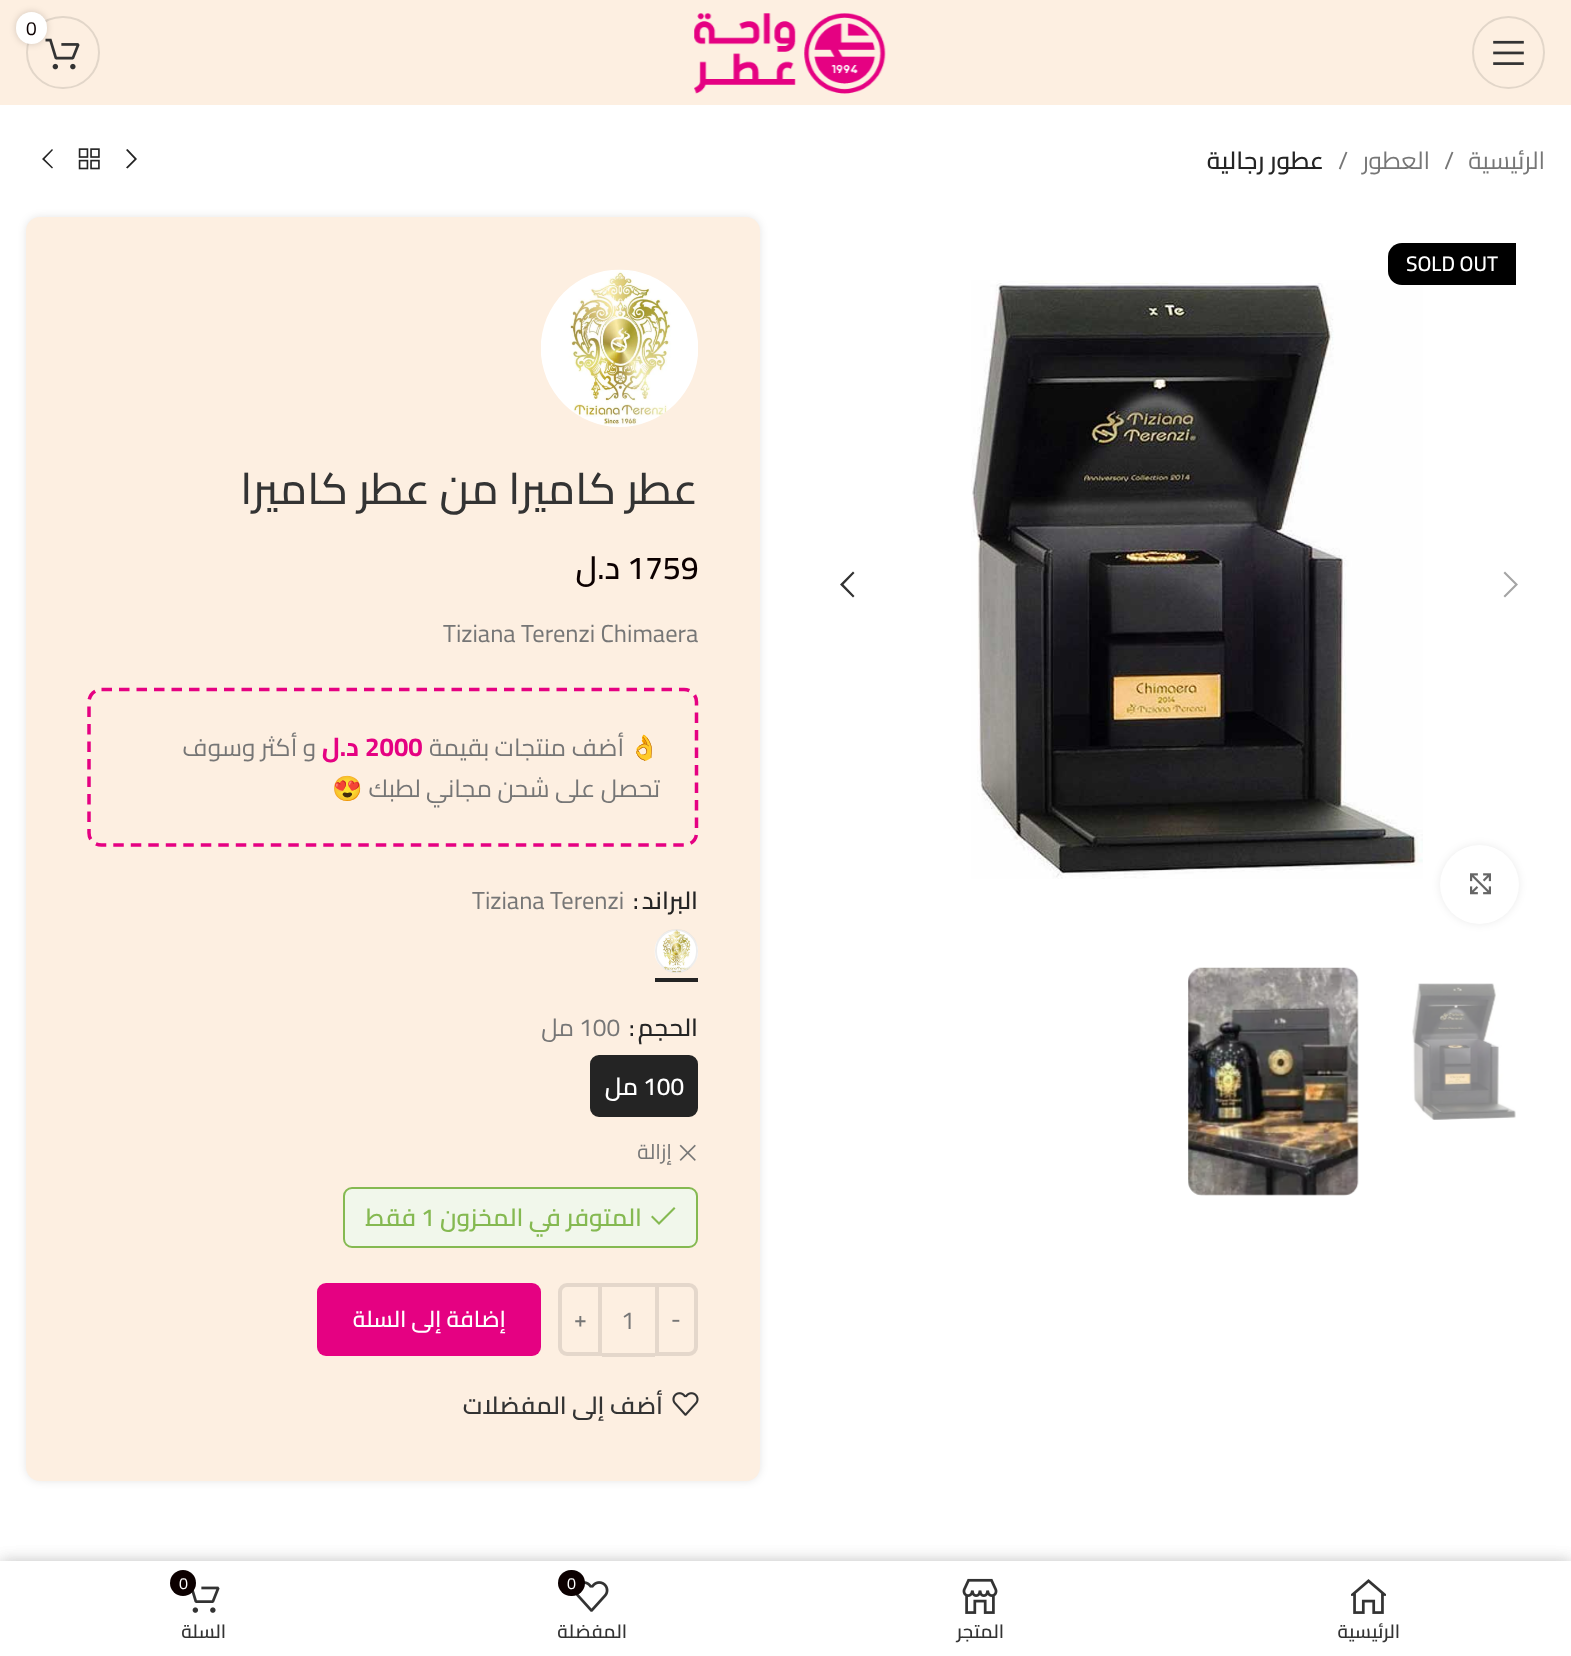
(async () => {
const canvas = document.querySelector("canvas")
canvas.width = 1571
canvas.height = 1656
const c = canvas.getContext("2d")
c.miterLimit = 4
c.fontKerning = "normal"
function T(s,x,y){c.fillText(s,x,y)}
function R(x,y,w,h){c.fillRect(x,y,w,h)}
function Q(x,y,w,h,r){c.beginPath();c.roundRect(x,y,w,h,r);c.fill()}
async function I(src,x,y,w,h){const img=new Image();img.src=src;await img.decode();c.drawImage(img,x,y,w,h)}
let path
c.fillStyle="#fff"
R(0,0,1571,1656)
c.fillStyle="#fdefe1"
R(0,0,1571,105)
c.beginPath()
c.arc(1508.5,52.5,35.5,0,7)
c.strokeStyle="#e2d6c9"
c.lineWidth=2
c.stroke()
await I("1.png",1493,40,31,25)
await I("2.png",694,13,192,81)
c.beginPath()
c.roundRect(27,17,72,71,35.5)
c.stroke()
await I("3.png",45,38,35,32)
c.fillStyle="#0000002b"
c.filter="blur(3.5px)"
c.beginPath()
c.roundRect(16,12,31,32,15.5)
c.fill()
c.filter="none"
c.fillStyle="#fff"
Q(16,12,31,32,15.5)
c.font="19px Cairo"
c.fillStyle="#0c0000"
T("0",26,35)
c.direction="rtl"
c.font="24.5px Cairo"
c.fillStyle="#767676"
T("الرئيسية",1545,169)
c.direction="ltr"
T("/",1444,169)
c.direction="rtl"
T("العطور",1430,169)
c.direction="ltr"
T("/",1338,169)
c.direction="rtl"
c.font="600 24.5px Cairo"
c.fillStyle="#242424"
T("عطور رجالية",1324,169)
path = new Path2D("M126 150l8.5 9l-8.5 8.5l1.5 1l9.5-9.5l-9.5-10z")
c.fill(path)
await I("4.png",78,148,22,22)
path = new Path2D("M53 150l-1-1l-10 10l10 9.5l1-1l-8.5-8.5z")
c.fill(path)
await I("5.png",971,280,452,599)
c.fillStyle="#000"
c.beginPath()
c.roundRect(1388,243,128,42,[14,0,0,14])
c.fill()
c.direction="ltr"
c.font="600 21px Cairo"
c.fillStyle="#fff"
T("SOLD OUT",1406,271)
c.fillStyle="#a5a5a5"
path = new Path2D("M1503.5 573l11.5 11.5l-11.5 11.5l1.5 1.5l13-13l-13-13z")
c.fill(path)
c.fillStyle="#333"
path = new Path2D("M854.5 573l-1.5-1.5l-13 13l13 13l1.5-1.5l-11-11.5z")
c.fill(path)
c.fillStyle="#00000014"
c.filter="blur(4.5px)"
c.beginPath()
c.roundRect(1440,845,79,79,39.5)
c.fill()
c.filter="none"
c.fillStyle="#fff"
c.beginPath()
c.arc(1479.5,884.5,39.5,0,7)
c.fill()
await I("6.png",1470,873,21,22)
await I("7.png",1412,983,104,137)
await I("8.png",1188,967,171,229)
c.fillStyle="#0000001a"
c.filter="blur(4.5px)"
c.beginPath()
c.roundRect(26,217,734,1264,14)
c.fill()
c.filter="none"
c.fillStyle="#fdefe1"
Q(26,217,734,1264,14)
await I("9.png",541,269,157,158)
c.direction="rtl"
c.font="500 43.75px Cairo"
c.fillStyle="#333"
T("عطر كاميرا من عطر كاميرا",698,504)
c.direction="ltr"
c.font="600 32px Cairo"
c.fillStyle="#0c0000"
T("1759",627,579)
c.direction="rtl"
T("د.ل",620,579)
c.direction="ltr"
c.font="24.5px Cairo"
c.fillStyle="#767676"
T("Tiziana Terenzi Chimaera",443,642)
path = new Path2D("M101.5 689.5h582.5c7 0 12.5 5.5 12.5 12.5v131c0 7-5.5 12-12.5 12h-582.5c-7 0-12.5-5-12.5-12v-131c0-7 5.5-12.5 12.5-12.5z")
c.strokeStyle="#e50182"
c.lineWidth=3.5
c.setLineDash([10.5,7])
c.stroke(path)
c.direction="rtl"
c.font="24.5px Noto Color Emoji"
T("👌",660,756)
c.font="24.5px Cairo"
T("أضف منتجات بقيمة",624,756)
c.direction="ltr"
c.font="bold 26px Cairo"
c.fillStyle="#e50182"
T("2000",365,756)
c.direction="rtl"
T("د.ل",359,756)
c.font="24.5px Cairo"
c.fillStyle="#767676"
T("و أكثر وسوف",316,756)
T("تحصل على شحن مجاني لطبك",660,797)
c.font="24.5px Noto Color Emoji"
T("😍",363,797)
c.font="600 24.5px Cairo"
c.fillStyle="#242424"
T("البراند",698,909)
c.direction="ltr"
T(":",633,909)
c.font="24.5px Cairo"
c.fillStyle="#767676"
T("Tiziana Terenzi",472,909)
await I("10.png",654,929,44,44)
c.beginPath()
c.roundRect(656,930,41,42,20.5)
c.strokeStyle="#00000012"
c.lineWidth=2
c.setLineDash([])
c.stroke()
c.fillStyle="#242424"
R(655,978,43,4)
c.direction="rtl"
c.font="600 24.5px Cairo"
T("الحجم",698,1036)
c.direction="ltr"
T(":",629,1036)
c.font="24.5px Cairo"
c.fillStyle="#767676"
T("100",579,1036)
c.direction="rtl"
T("مل",574,1036)
c.fillStyle="#242424"
c.beginPath()
c.roundRect(591,1056,106,60,8)
c.fill()
c.strokeStyle="#242424"
c.stroke()
c.direction="ltr"
c.font="600 24.5px Cairo"
c.fillStyle="#fff"
T("100",643,1095)
c.direction="rtl"
T("مل",638,1095)
await I("11.png",679,1144,17,17)
c.font="21px Cairo"
c.fillStyle="#767676"
T("إزالة",672,1159)
c.fillStyle="#f1f7eb"
c.beginPath()
c.roundRect(344,1188,353,59,8)
c.fill()
c.strokeStyle="#85b951"
c.stroke()
c.fillStyle="#85b951"
path = new Path2D("M675.5 1208.5l-1.5-1.5l-15 15l-6.5-6.5l-1.5 1.5l8 8z")
c.fill(path)
c.font="600 24.5px Cairo"
T("المتوفر في المخزون",642,1226)
c.direction="ltr"
T("1",421,1226)
c.direction="rtl"
T("فقط",416,1226)
c.beginPath()
c.roundRect(657,1285,39,69,[0,7,7,0])
c.strokeStyle="#e4d7cb"
c.lineWidth=4
c.stroke()
c.direction="ltr"
c.font="600 22.75px Cairo"
c.fillStyle="#767676"
T("-",671,1327)
c.fillStyle="#e4d7cb"
R(602,1283,53,4)
R(602,1353,53,4)
c.font="24.5px Cairo"
c.fillStyle="#767676"
T("1",621,1329)
c.beginPath()
c.roundRect(560,1285,40,69,[7,0,0,7])
c.stroke()
c.font="600 22.75px Cairo"
T("+",574,1327)
c.fillStyle="#e50182"
Q(317,1283,224,73,9)
c.direction="rtl"
c.fillStyle="#fff"
T("إضافة إلى السلة",506,1327)
await I("12.png",672,1392,27,24)
c.font="600 24.5px Cairo"
c.fillStyle="#333"
T("أضف إلى المفضلات",663,1414)
c.fillStyle="#0000001f"
c.filter="blur(8px)"
c.beginPath()
c.rect(0,1561,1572,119)
c.fill()
c.filter="none"
c.filter="blur(8px)"
c.beginPath()
c.rect(0,1561,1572,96)
c.fill()
c.filter="none"
c.fillStyle="#fff"
R(0,1561,1571,95)
await I("13.png",1351,1579,35,35)
c.font="600 19px Cairo"
c.fillStyle="#333"
T("الرئيسية",1400,1638)
await I("14.png",962,1578,36,36)
T("المتجر",1004,1638)
await I("15.png",575,1581,34,31)
c.fillStyle="#0c0000"
Q(558,1570,27,26,13)
c.direction="ltr"
c.font="16px Cairo"
c.fillStyle="#fff"
T("0",567,1589)
c.direction="rtl"
c.font="600 19px Cairo"
c.fillStyle="#333"
T("المفضلة",627,1638)
await I("16.png",191,1586,29,27)
c.fillStyle="#0c0000"
c.beginPath()
c.arc(183,1583,13,0,7)
c.fill()
c.direction="ltr"
c.font="16px Cairo"
c.fillStyle="#fff"
T("0",179,1589)
c.direction="rtl"
c.font="600 19px Cairo"
c.fillStyle="#333"
T("السلة",226,1638)
})()
